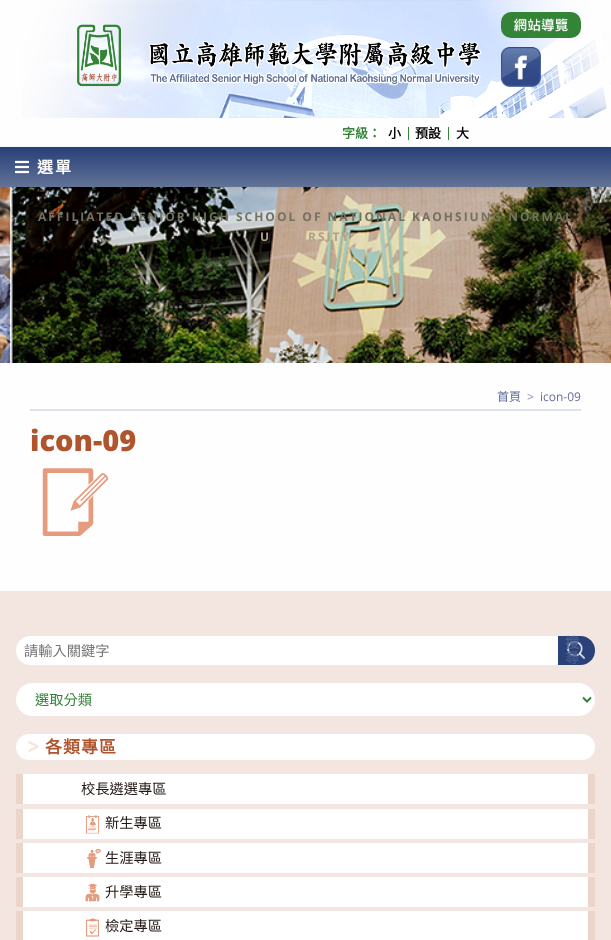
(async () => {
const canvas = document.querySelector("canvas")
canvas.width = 611
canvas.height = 940
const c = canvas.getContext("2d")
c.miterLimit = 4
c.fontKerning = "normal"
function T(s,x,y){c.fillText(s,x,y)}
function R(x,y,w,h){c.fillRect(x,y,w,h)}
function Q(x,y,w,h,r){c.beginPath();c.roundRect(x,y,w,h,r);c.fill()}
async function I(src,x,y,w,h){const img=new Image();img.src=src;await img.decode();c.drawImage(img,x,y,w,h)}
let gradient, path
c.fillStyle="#fffefe"
R(0,0,611,940)
await I("1.png",21,0,590,118)
c.fillStyle="#348438"
Q(501,12,80,26,10)
await I("2.png",513,18,55,14)
await I("3.png",501,47,40,40)
await I("4.png",77,24,405,63)
c.font="bold 13px Noto Sans CJK TC"
T("字級：",342,138)
R(408,127,1,13)
c.fillStyle="#000"
T("小",388,138)
c.fillStyle="#348438"
R(448,127,1,13)
c.fillStyle="#000"
T("預設",415,138)
T("大",456,138)
await I("5.png",0,187,611,176)
c.fillStyle="#0000001a"
c.filter="blur(2.5px)"
c.beginPath()
c.rect(0,148,611,40)
c.fill()
c.filter="none"
gradient = c.createLinearGradient(306,147,306,187)
gradient.addColorStop(.05,"#2a417a")
gradient.addColorStop(1,"#627396")
c.fillStyle = gradient
R(0,147,611,40)
await I("6.png",15,160,14,14)
c.letterSpacing="2px"
c.font="bold 16px Noto Sans CJK TC"
c.fillStyle="#fff"
T("選單",37,173)
c.font="bold 12px Open Sans"
c.fillStyle="#737161"
T("AFFILIATED SENIOR HIGH SCHOOL OF NATIONAL KAOHSIUNG NORMAL",38,221)
c.fillStyle="#afa289"
T("U",260,241)
T("RSITY",308,241)
c.fillStyle="#dfe2eb"
R(30,409,551,2)
c.letterSpacing="0px"
c.font="12px Noto Sans CJK TC"
c.fillStyle="#5f709b"
T("首頁",497,401)
c.font="500 12px Open Sans"
c.fillStyle="#94a0bc"
T(">",527,401)
c.font="12px Open Sans"
c.fillStyle="#5f709b"
T("icon-09",540,401)
c.font="800 29px Open Sans"
c.fillStyle="#b0542d"
T("icon-09",30,451)
await I("7.png",42,468,67,68)
c.fillStyle="#f3e5df"
R(0,591,611,349)
c.fillStyle="#fff"
c.beginPath()
c.roundRect(16,636,542,29,[14.5,2.5,2.5,14.5])
c.fill()
c.font="14.25px Noto Sans CJK TC"
c.fillStyle="#757575"
T("請輸入關鍵字",24,656)
c.fillStyle="#2a417a"
c.beginPath()
c.roundRect(558,636,37,29,[0,14.5,14.5,0])
c.fill()
await I("8.png",567,641,18,18)
c.letterSpacing="1px"
c.font="bold 14.25px Noto Sans CJK TC"
c.fillStyle="#4a5e8e"
T("搜",565,648)
c.fillStyle="#43588a"
T("尋",565,663)
c.fillStyle="#fff"
Q(16,683,579,33,16.5)
path = new Path2D("M583 697.5l4 4l4-4")
c.strokeStyle="#348438"
c.lineWidth=2
c.stroke(path)
c.letterSpacing="0px"
c.font="14.25px Noto Sans CJK TC"
c.fillStyle="#348438"
T("選取分類",35,705)
c.fillStyle="#fff"
Q(16,734,579,26,13)
await I("9.png",28,741,11,11)
c.letterSpacing="1px"
c.font="bold 17px Noto Sans CJK TC"
c.fillStyle="#b0542d"
T("各類專區",45,753)
c.fillStyle="#fff"
R(23,774,565,30)
c.fillStyle="#ebd4ca"
R(588,774,7,30)
R(16,774,7,30)
c.letterSpacing="0px"
c.font="14.25px Noto Sans CJK TC"
c.fillStyle="#231815"
T("校長遴選專區",81,794)
c.fillStyle="#fff"
R(23,809,565,30)
c.fillStyle="#ebd4ca"
R(588,809,7,30)
R(16,809,7,30)
await I("10.png",85,815,15,19)
c.fillStyle="#231815"
T("新生專區",105,828)
c.fillStyle="#fff"
R(23,843,565,30)
c.fillStyle="#ebd4ca"
R(588,843,7,30)
R(16,843,7,30)
await I("11.png",87,848,14,20)
c.fillStyle="#231815"
T("生涯專區",105,863)
c.fillStyle="#fff"
R(23,877,565,30)
c.fillStyle="#ebd4ca"
R(588,877,7,30)
R(16,877,7,30)
await I("12.png",85,883,15,19)
c.fillStyle="#231815"
T("升學專區",105,897)
c.fillStyle="#fff"
R(23,911,565,29)
c.fillStyle="#ebd4ca"
R(588,911,7,29)
R(16,911,7,29)
await I("13.png",86,918,13,19)
c.fillStyle="#231815"
T("檢定專區",105,931)
})()
